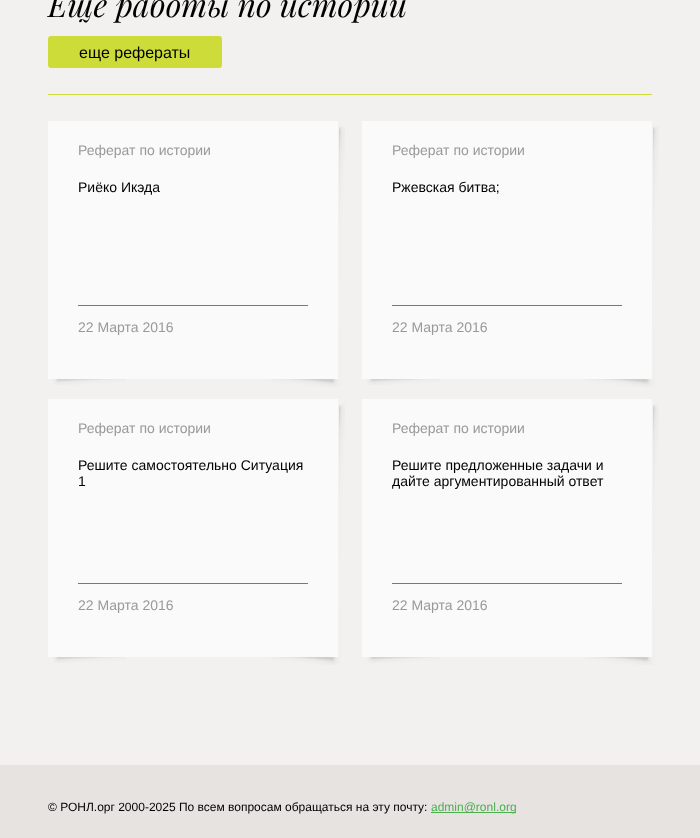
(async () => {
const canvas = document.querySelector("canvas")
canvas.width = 700
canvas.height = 838
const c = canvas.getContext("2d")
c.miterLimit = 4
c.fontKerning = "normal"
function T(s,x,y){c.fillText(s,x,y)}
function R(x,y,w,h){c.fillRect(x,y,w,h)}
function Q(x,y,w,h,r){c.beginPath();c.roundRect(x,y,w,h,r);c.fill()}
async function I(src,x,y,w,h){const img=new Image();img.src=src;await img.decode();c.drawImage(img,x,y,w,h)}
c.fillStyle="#f2f1f0"
R(0,0,700,838)
c.font="italic 32px Playfair Display"
c.fillStyle="#000"
T("Еще работы по истории",48,17)
c.fillStyle="#cddc39"
Q(48,36,174,32,3)
c.font="16px Liberation Sans"
c.fillStyle="#000"
T("еще рефераты",79,58)
c.fillStyle="#cddc39"
R(48,94,604,1)
c.fillStyle="#fafafa"
R(48,121,290,258)
c.font="14px Liberation Sans"
c.fillStyle="#999"
T("Реферат по истории",78,155)
c.fillStyle="#777"
R(78,305,230,1)
await I("1.png",271,126,74,261)
c.fillStyle="#000"
T("Риёко Икэда",78,192)
c.fillStyle="#999"
T("22 Марта 2016",78,332)
await I("2.png",53,379,73,6)
c.fillStyle="#fafafa"
R(362,121,290,258)
c.fillStyle="#999"
T("Реферат по истории",392,155)
c.fillStyle="#777"
R(392,305,230,1)
await I("1.png",585,126,74,261)
c.fillStyle="#000"
T("Ржевская битва;",392,192)
c.fillStyle="#999"
T("22 Марта 2016",392,332)
await I("2.png",367,379,73,6)
c.fillStyle="#fafafa"
R(48,399,290,258)
c.fillStyle="#999"
T("Реферат по истории",78,433)
c.fillStyle="#000"
T("Решите самостоятельно Ситуация",78,470)
c.fillStyle="#777"
R(78,583,230,1)
await I("3.png",271,404,74,261)
c.fillStyle="#000"
T("1",78,486)
c.fillStyle="#999"
T("22 Марта 2016",78,610)
await I("2.png",53,657,73,6)
c.fillStyle="#fafafa"
R(362,399,290,258)
c.fillStyle="#999"
T("Реферат по истории",392,433)
c.fillStyle="#000"
T("Решите предложенные задачи и",392,470)
T("дайте аргументированный ответ",392,486)
c.fillStyle="#777"
R(392,583,230,1)
await I("4.png",585,404,74,261)
c.fillStyle="#999"
T("22 Марта 2016",392,610)
await I("2.png",367,657,73,6)
c.fillStyle="#e6e3e1"
R(0,765,700,73)
c.font="12px Liberation Sans"
c.fillStyle="#000"
T("© РОНЛ.орг 2000-2025 По всем вопросам обращаться на эту почту:",48,811)
c.fillStyle="#4caf50"
R(431,812,85,1)
T("admin@ronl.org",431,811)
})()
